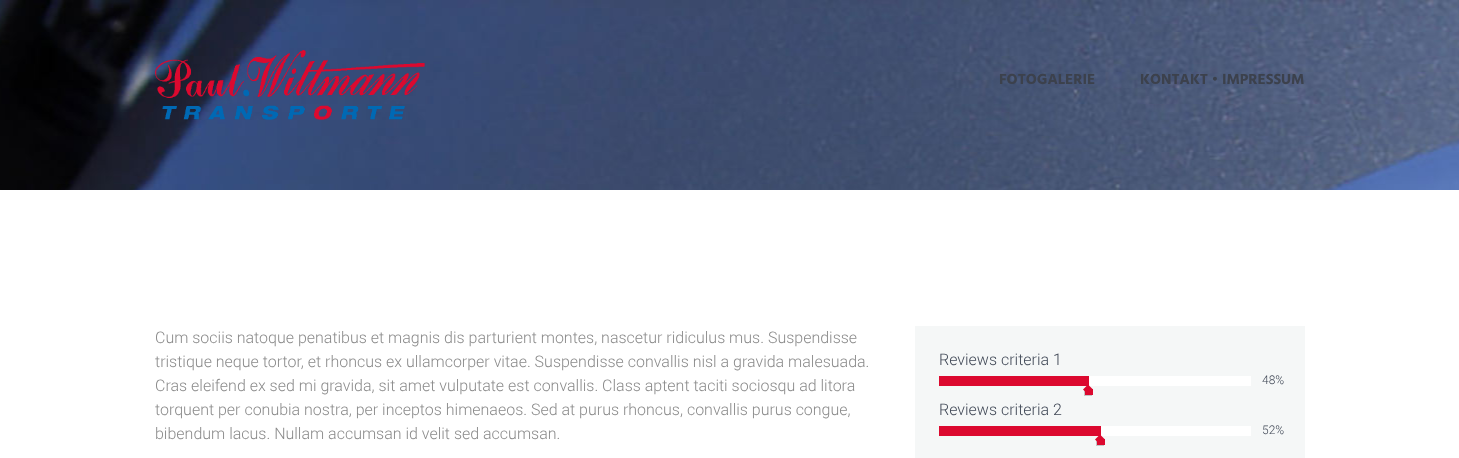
(async () => {
const canvas = document.querySelector("canvas")
canvas.width = 1459
canvas.height = 458
const c = canvas.getContext("2d")
c.miterLimit = 4
c.fontKerning = "normal"
function T(s,x,y){c.fillText(s,x,y)}
function R(x,y,w,h){c.fillRect(x,y,w,h)}
async function I(src,x,y,w,h){const img=new Image();img.src=src;await img.decode();c.drawImage(img,x,y,w,h)}
let path
c.fillStyle="#fff"
R(0,0,1459,458)
await I("1.png",0,0,1459,190)
await I("2.png",155,50,270,70)
c.font="bold 15px Hind"
c.fillStyle="#3c414c"
T("FOTOGALERIE",999,84)
T("KONTAKT • IMPRESSUM",1140,84)
c.font="300 16px Roboto"
c.fillStyle="#8b8b8b"
T("Cum sociis natoque penatibus et magnis dis parturient montes, nascetur ridiculus mus. Suspendisse",155,343)
T("tristique neque tortor, et rhoncus ex ullamcorper vitae. Suspendisse convallis nisl a gravida malesuada.",155,367)
T("Cras eleifend ex sed mi gravida, sit amet vulputate est convallis. Class aptent taciti sociosqu ad litora",155,391)
T("torquent per conubia nostra, per inceptos himenaeos. Sed at purus rhoncus, convallis purus congue,",155,415)
T("bibendum lacus. Nullam accumsan id velit sed accumsan.",155,439)
c.fillStyle="#f5f7f7"
R(915,326,390,132)
c.fillStyle="#404856"
T("Reviews criteria 1",939,365)
c.fillStyle="#dc092f"
R(939,376,150,10)
c.fillStyle="#fff"
R(1089,376,162,10)
c.fillStyle="#00000033"
c.filter="blur(0.5px)"
c.beginPath()
c.rect(1084,390,8,6)
c.fill()
c.filter="none"
c.fillStyle="#dc092f"
R(1085,389,8,6)
path = new Path2D("M1088 384.5l5 5l-5 5l-5-5z")
c.fill(path)
c.font="300 12px Roboto"
c.fillStyle="#404856"
T("48%",1262,384)
c.font="300 16px Roboto"
T("Reviews criteria 2",939,415)
c.fillStyle="#dc092f"
R(939,426,162,10)
c.fillStyle="#fff"
R(1101,426,150,10)
c.fillStyle="#00000033"
c.filter="blur(0.5px)"
c.beginPath()
c.rect(1096,440,8,6)
c.fill()
c.filter="none"
c.fillStyle="#dc092f"
R(1097,439,8,6)
path = new Path2D("M1100 434.5l5 5l-5 5l-5-5z")
c.fill(path)
c.font="300 12px Roboto"
c.fillStyle="#404856"
T("52%",1262,434)
})()
